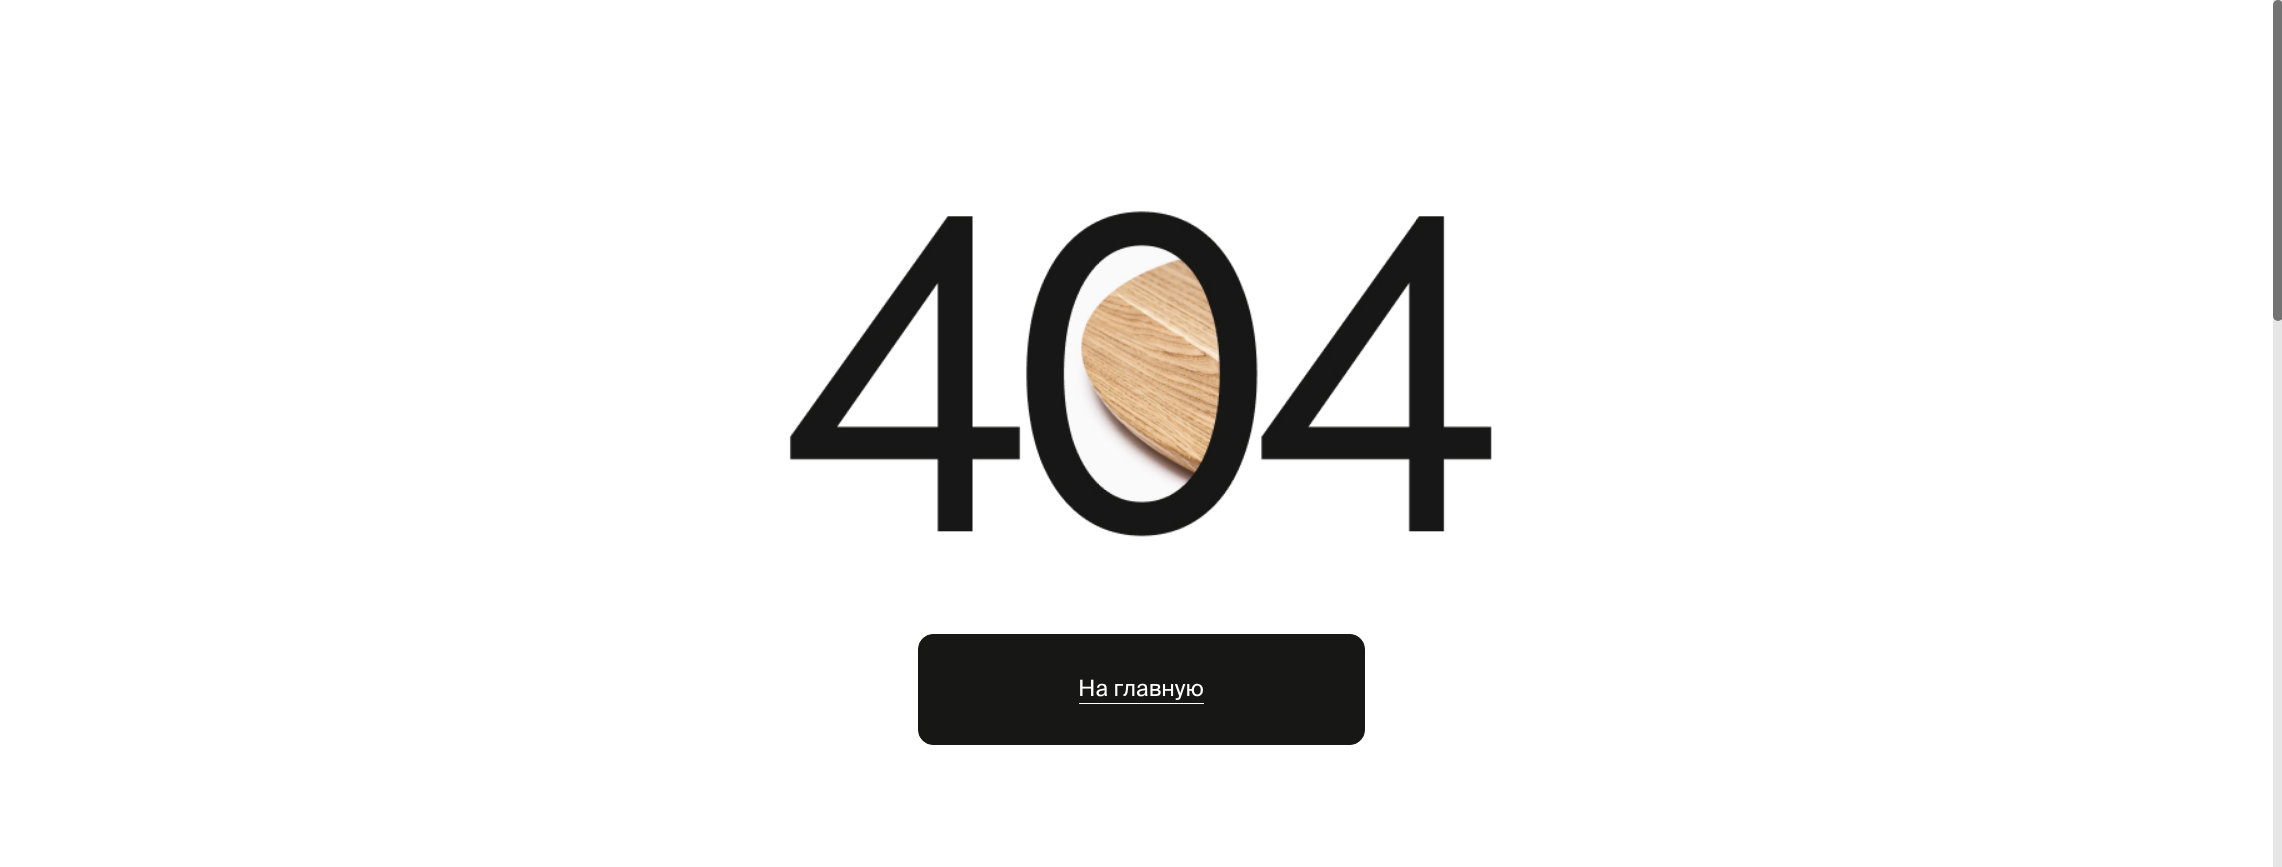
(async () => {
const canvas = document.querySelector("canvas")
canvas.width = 2282
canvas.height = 867
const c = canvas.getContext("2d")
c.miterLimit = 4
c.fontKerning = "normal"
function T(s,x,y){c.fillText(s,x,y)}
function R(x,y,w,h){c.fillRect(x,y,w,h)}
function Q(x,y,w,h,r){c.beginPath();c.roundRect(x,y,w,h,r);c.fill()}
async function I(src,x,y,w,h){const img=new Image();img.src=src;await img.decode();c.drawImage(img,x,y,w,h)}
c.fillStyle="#fff"
R(0,0,2282,867)
await I("1.png",789,211,703,326)
c.fillStyle="#171716"
c.beginPath()
c.roundRect(918.5,634.5,446,110,14.5)
c.fill()
c.strokeStyle="#171716"
c.stroke()
c.fillStyle="#fff"
R(1079,703,125,1)
c.font="22.5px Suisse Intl"
T("На главную",1078,696)
c.fillStyle="#e6e6e6"
R(2273,0,9,867)
c.fillStyle="#737373"
Q(2273,0,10,321,5)
})()
